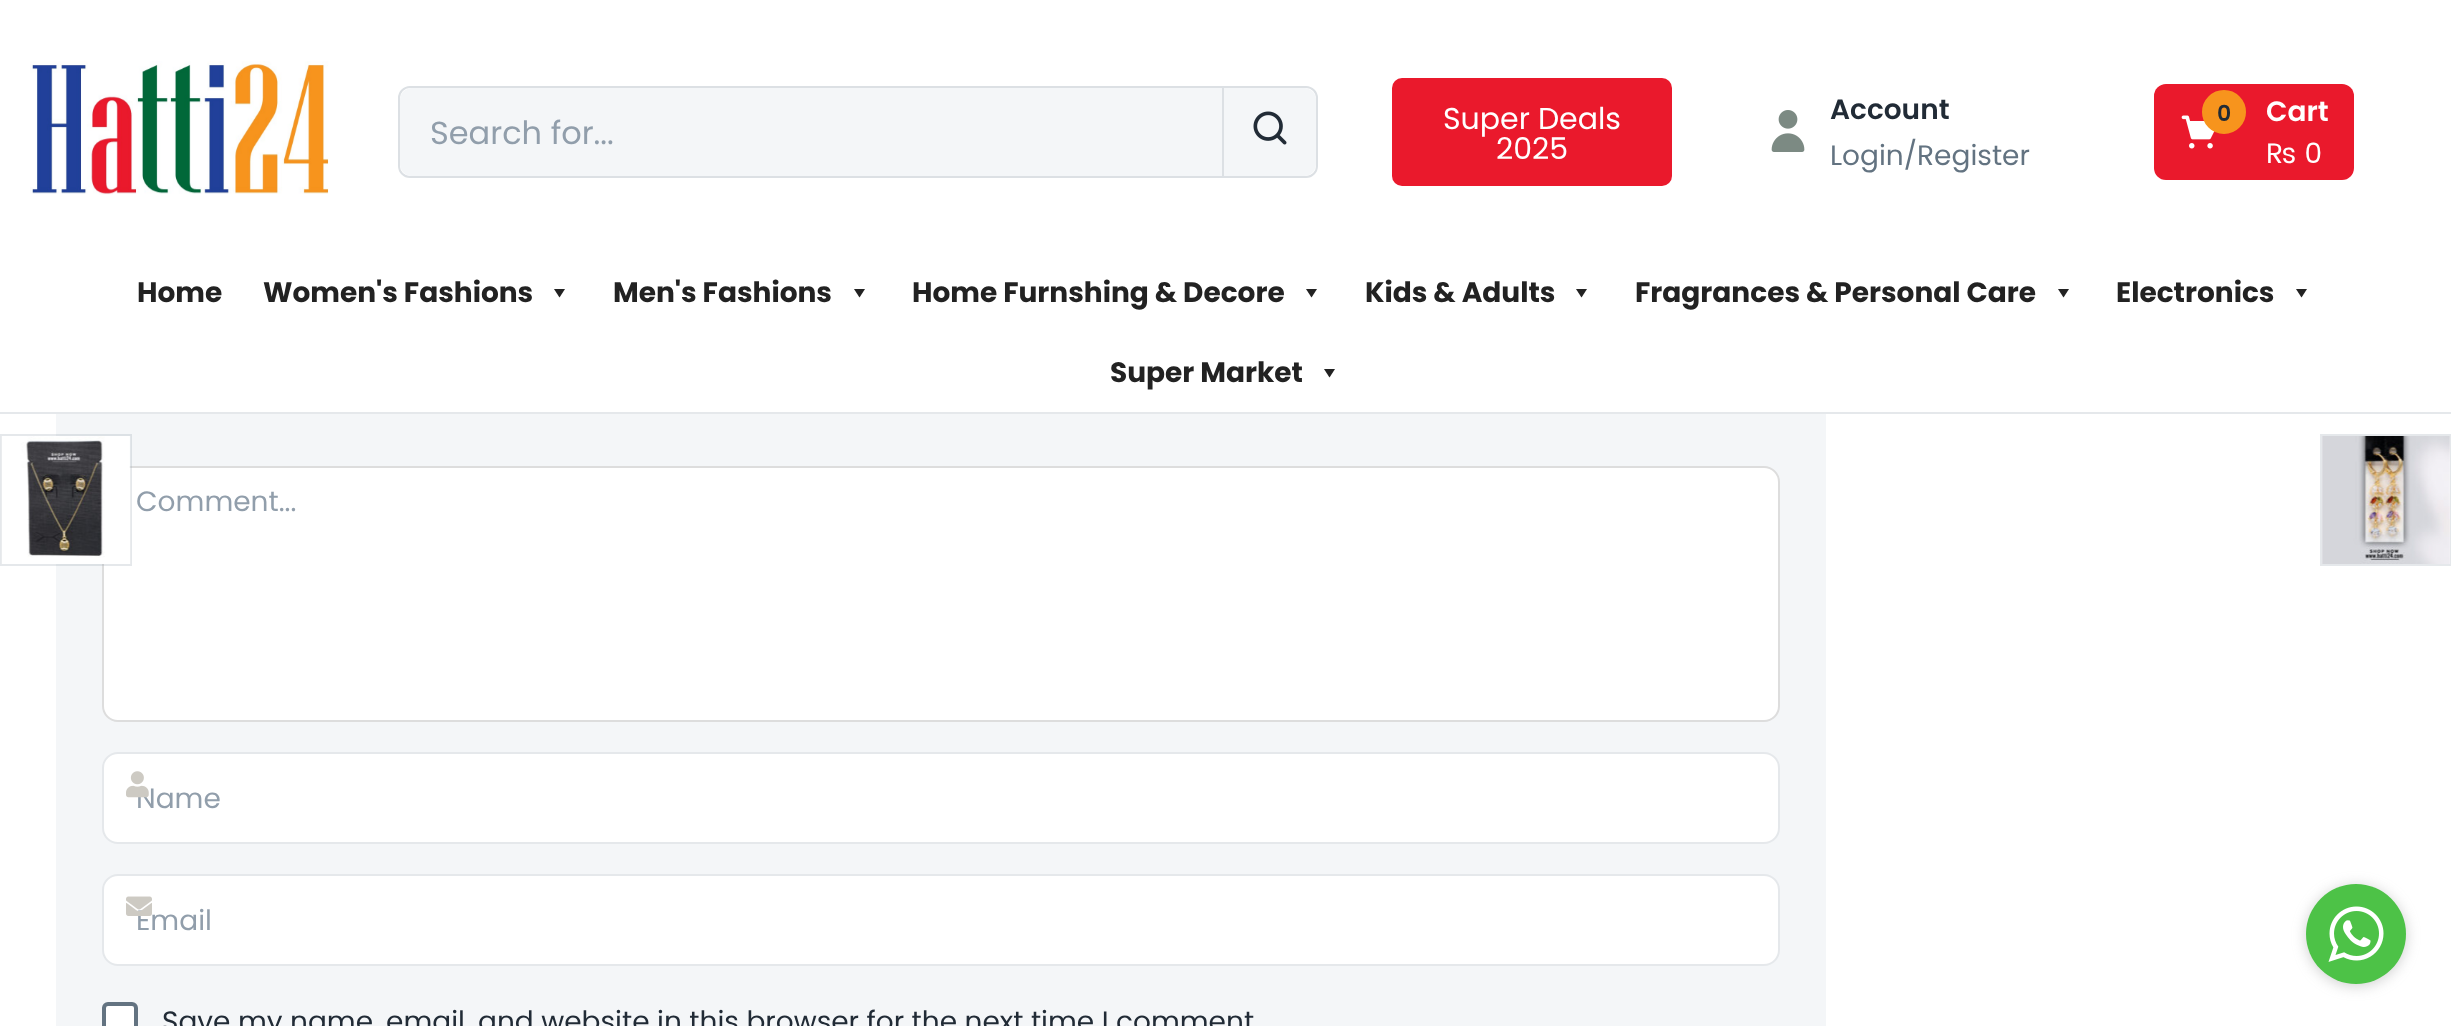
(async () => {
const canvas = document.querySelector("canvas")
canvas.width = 2451
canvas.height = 1026
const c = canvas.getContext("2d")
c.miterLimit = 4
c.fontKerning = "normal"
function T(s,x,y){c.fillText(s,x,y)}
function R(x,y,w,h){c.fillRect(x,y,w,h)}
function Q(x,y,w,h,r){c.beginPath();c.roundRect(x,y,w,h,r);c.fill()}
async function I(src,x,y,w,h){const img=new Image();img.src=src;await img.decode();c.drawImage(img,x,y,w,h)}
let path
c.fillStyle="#fff"
R(0,0,2451,1026)
await I("1.png",30,61,299,134)
c.beginPath()
c.roundRect(399,87,918,90,11)
c.strokeStyle="#dce0e4"
c.lineWidth=2
c.stroke()
c.fillStyle="#f4f6f8"
c.beginPath()
c.roundRect(400,88,822,88,[12,0,0,12])
c.fill()
c.font="32px Poppins"
c.fillStyle="#919eab"
T("Search for...",430,144)
c.fillStyle="#f4f6f8"
c.beginPath()
c.roundRect(1224,88,92,88,[0,12,12,0])
c.fill()
c.fillStyle="#dce0e4"
R(1222,88,2,88)
await I("2.png",1253,111,34,34)
c.fillStyle="#ea192c"
Q(1392,78,280,108,10)
c.font="30px Poppins"
c.fillStyle="#fff"
T("Super Deals",1443,129)
T("2025",1496,159)
await I("3.png",1771,110,34,42)
c.font="600 28px Poppins"
c.fillStyle="#212b36"
T("Account",1830,119)
c.font="28px Poppins"
c.fillStyle="#637381"
T("Login/Register",1830,165)
c.fillStyle="#ea192c"
Q(2154,84,200,96,12)
await I("4.png",2181,115,34,34)
c.fillStyle="#f7941d"
c.beginPath()
c.arc(2224,112,21,0,7)
c.fill()
c.strokeStyle="#f7941d"
c.stroke()
c.font="600 22px Poppins"
c.fillStyle="#212b36"
T("0",2217,121)
c.font="600 28px Poppins"
c.fillStyle="#fff"
T("Cart",2266,121)
c.font="28px Poppins"
T("₨ 0",2266,163)
c.fillStyle="#e5e8eb"
R(0,412,2451,2)
c.font="bold 28px Poppins"
c.fillStyle="#222"
T("Home",137,302)
T("Women's Fashions",263,302)
path = new Path2D("M565 289l-5.5 8.5l-5.5-8.5z")
c.fill(path)
T("Men's Fashions",613,302)
path = new Path2D("M865 289l-5.5 8.5l-5.5-8.5z")
c.fill(path)
T("Home Furnshing & Decore",912,302)
path = new Path2D("M1317 289l-5.5 8.5l-5.5-8.5z")
c.fill(path)
T("Kids & Adults",1365,302)
path = new Path2D("M1587 289l-5.5 8.5l-5.5-8.5z")
c.fill(path)
T("Fragrances & Personal Care",1635,302)
path = new Path2D("M2069 289l-5.5 8.5l-5.5-8.5z")
c.fill(path)
T("Electronics",2116,302)
path = new Path2D("M2307 289l-5.5 8.5l-5.5-8.5z")
c.fill(path)
T("Super Market",1110,382)
path = new Path2D("M1335 369l-5.5 8.5l-5.5-8.5z")
c.fill(path)
c.fillStyle="#f4f6f8"
R(56,414,1770,612)
c.fillStyle="#fff"
c.beginPath()
c.roundRect(103,467,1676,254,15)
c.fill()
c.strokeStyle="#ddd"
c.stroke()
c.strokeStyle="#919eab3d"
c.strokeRect(1,435,130,130)
await I("5.png",1,436,130,128)
c.strokeStyle="#e5e8eb"
c.strokeRect(2321,435,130,130)
await I("6.png",2322,436,128,128)
c.font="28px Poppins"
c.fillStyle="#919eab"
T("Comment...",136,511)
c.fillStyle="#fff"
Q(102,752,1678,92,16)
c.beginPath()
c.roundRect(103,753,1676,90,15)
c.strokeStyle="#919eab3d"
c.stroke()
c.fillStyle="#919eab"
T("Name",136,808)
await I("7.png",126,771,23,27)
c.fillStyle="#fff"
Q(102,874,1678,92,16)
c.beginPath()
c.roundRect(103,875,1676,90,15)
c.stroke()
c.fillStyle="#919eab"
T("Email",136,930)
await I("8.png",126,896,26,20)
c.fillStyle="#fff"
c.beginPath()
c.roundRect(104,1004,32,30,4)
c.fill()
c.strokeStyle="#637381"
c.lineWidth=4
c.stroke()
c.fillStyle="#212b36"
T("Save my name, email, and website in this browser for the next time I comment",162,1031)
c.fillStyle="#88888866"
c.filter="blur(7px)"
c.beginPath()
c.roundRect(2306,886,100,100,50)
c.fill()
c.filter="none"
c.fillStyle="#4dc247"
c.beginPath()
c.arc(2356,934,50,0,7)
c.fill()
await I("9.png",2328,906,56,56)
})()
